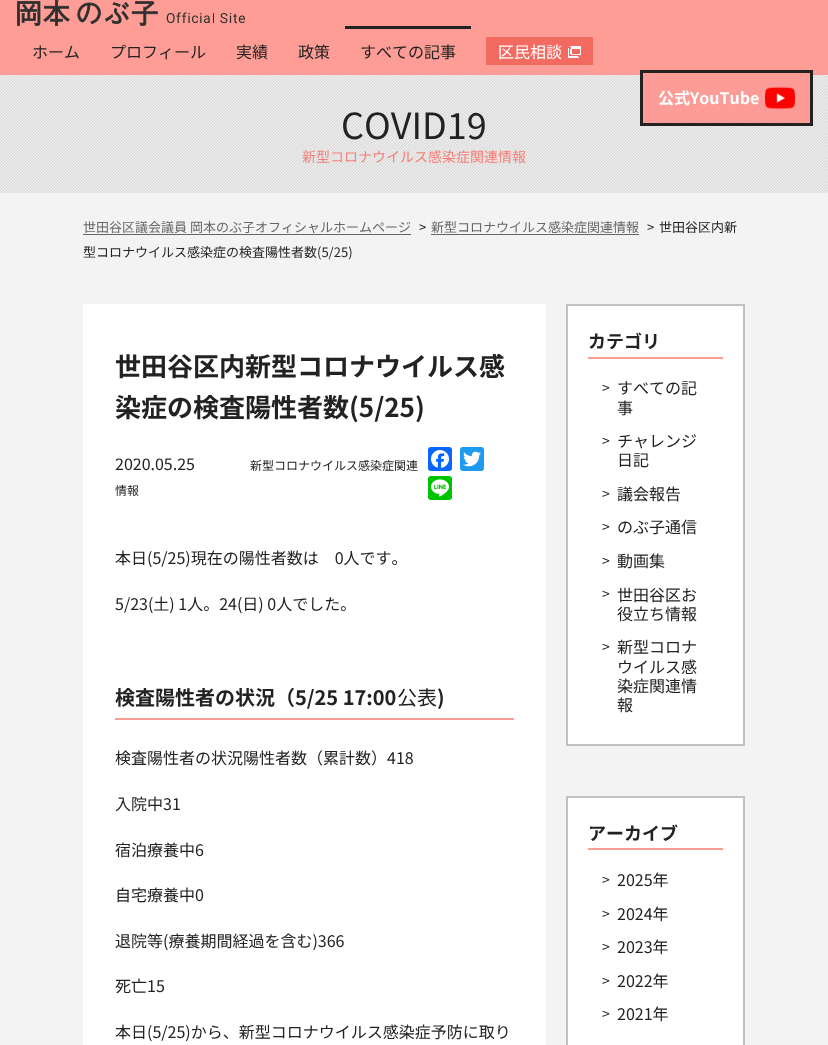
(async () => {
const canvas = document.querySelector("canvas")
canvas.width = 828
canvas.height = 1045
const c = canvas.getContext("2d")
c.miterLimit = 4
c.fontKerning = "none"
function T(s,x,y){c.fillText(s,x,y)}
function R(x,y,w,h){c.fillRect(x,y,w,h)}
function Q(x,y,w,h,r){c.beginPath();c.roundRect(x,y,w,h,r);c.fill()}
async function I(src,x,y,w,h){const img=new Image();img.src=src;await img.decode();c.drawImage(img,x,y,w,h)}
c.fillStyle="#f3f3f3"
R(0,0,828,1045)
c.fillStyle="#fd9d96"
R(0,0,828,75)
await I("1.png",17,0,228,26)
c.font="16px Noto Sans JP"
c.fillStyle="#222"
T("ホーム",32,58)
T("プロフィール",110,58)
T("実績",236,58)
T("政策",298,58)
R(345,26,126,3)
T("すべての記事",360,58)
c.fillStyle="#f26a60"
R(486,37,107,28)
c.fillStyle="#fff"
T("区民相談",498,58)
await I("2.png",568,46,13,12)
await I("4.png",0,75,828,118)
c.fillStyle="#fd9c96"
R(643,75,167,48)
c.strokeStyle="#222"
c.lineWidth=3
c.strokeRect(641.5,71.5,170,53)
c.font="bold 16px Noto Sans JP"
c.fillStyle="#fff"
T("公式YouTube",658,104)
await I("3.png",765,86,30,24)
c.font="36px Noto Sans JP"
c.fillStyle="#222"
T("COVID19",341,139)
c.font="14px Noto Sans JP"
c.fillStyle="#f57f76"
T("新型コロナウイルス感染症関連情報",302,162)
c.font="13px Noto Sans JP"
c.fillStyle="#666"
T("世田谷区議会議員 岡本のぶ子オフィシャルホームページ",83,232)
R(83,234,328,1)
c.fillStyle="#222"
T(">",419,232)
c.fillStyle="#666"
T("新型コロナウイルス感染症関連情報",431,232)
R(431,234,208,1)
c.fillStyle="#222"
T(">",647,232)
T("世田谷区内新",659,232)
T("型コロナウイルス感染症の検査陽性者数(5/25)",83,257)
c.fillStyle="#fff"
R(83,304,463,741)
c.font="bold 26px Noto Sans JP"
c.fillStyle="#222"
T("世田谷区内新型コロナウイルス感",115,376)
T("染症の検査陽性者数(5/25)",115,417)
c.font="16px Noto Sans JP"
T("2020.05.25",115,470)
c.font="12px Noto Sans JP"
T("新型コロナウイルス感染症関連",250,470)
T("情報",115,495)
c.fillStyle="#0866ff"
Q(428,447,24,24,3)
await I("5.png",431,450,18,18)
c.fillStyle="#1d9bf0"
Q(460,447,24,24,3)
await I("6.png",463,451,18,16)
c.fillStyle="#00c300"
Q(428,476,24,24,3)
await I("7.png",431,479,18,18)
c.font="16px Noto Sans JP"
c.fillStyle="#222"
T("本日(5/25)現在の陽性者数は　0人です。",115,564)
T("5/23(土) 1人。24(日) 0人でした。",115,610)
c.fillStyle="#fd9d96"
R(115,718,399,2)
c.font="bold 20px Noto Sans JP"
c.fillStyle="#222"
T("検査陽性者の状況（5/25 17:00",115,705)
c.font="20px Noto Sans JP"
T("公表",397,705)
c.font="bold 20px Noto Sans JP"
T(")",437,705)
c.font="16px Noto Sans JP"
T("検査陽性者の状況陽性者数（累計数）418",115,764)
T("入院中31",115,810)
T("宿泊療養中6",115,856)
T("自宅療養中0",115,901)
T("退院等(療養期間経過を含む)366",115,947)
T("死亡15",115,992)
T("本日(5/25)から、新型コロナウイルス感染症予防に取り",115,1038)
c.fillStyle="#fff"
c.beginPath()
c.rect(567,305,177,440)
c.fill()
c.strokeStyle="#c1c1c1"
c.lineWidth=2
c.stroke()
c.fillStyle="#fd9d96"
R(588,357,135,2)
c.font="bold 18px Noto Sans JP"
c.fillStyle="#222"
T("カテゴリ",588,348)
c.font="14px Noto Sans JP"
T(">",602,393)
c.font="16px Noto Sans JP"
T("すべての記",617,394)
T("事",617,414)
c.font="14px Noto Sans JP"
T(">",602,446)
c.font="16px Noto Sans JP"
T("チャレンジ",617,447)
T("日記",617,466)
c.font="14px Noto Sans JP"
T(">",602,499)
c.font="16px Noto Sans JP"
T("議会報告",617,500)
c.font="14px Noto Sans JP"
T(">",602,532)
c.font="16px Noto Sans JP"
T("のぶ子通信",617,533)
c.font="14px Noto Sans JP"
T(">",602,566)
c.font="16px Noto Sans JP"
T("動画集",617,567)
c.font="14px Noto Sans JP"
T(">",602,599)
c.font="16px Noto Sans JP"
T("世田谷区お",617,601)
T("役立ち情報",617,620)
c.font="14px Noto Sans JP"
T(">",602,652)
c.font="16px Noto Sans JP"
T("新型コロナ",617,653)
T("ウイルス感",617,673)
T("染症関連情",617,692)
T("報",617,711)
c.fillStyle="#fff"
c.beginPath()
c.rect(567,797,177,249)
c.fill()
c.stroke()
c.fillStyle="#fd9d96"
R(588,848,135,2)
c.font="bold 18px Noto Sans JP"
c.fillStyle="#222"
T("アーカイブ",588,840)
c.font="14px Noto Sans JP"
T(">",602,885)
c.font="16px Noto Sans JP"
T("2025年",617,886)
c.font="14px Noto Sans JP"
T(">",602,919)
c.font="16px Noto Sans JP"
T("2024年",617,920)
c.font="14px Noto Sans JP"
T(">",602,952)
c.font="16px Noto Sans JP"
T("2023年",617,953)
c.font="14px Noto Sans JP"
T(">",602,986)
c.font="16px Noto Sans JP"
T("2022年",617,987)
c.font="14px Noto Sans JP"
T(">",602,1019)
c.font="16px Noto Sans JP"
T("2021年",617,1020)
})()
